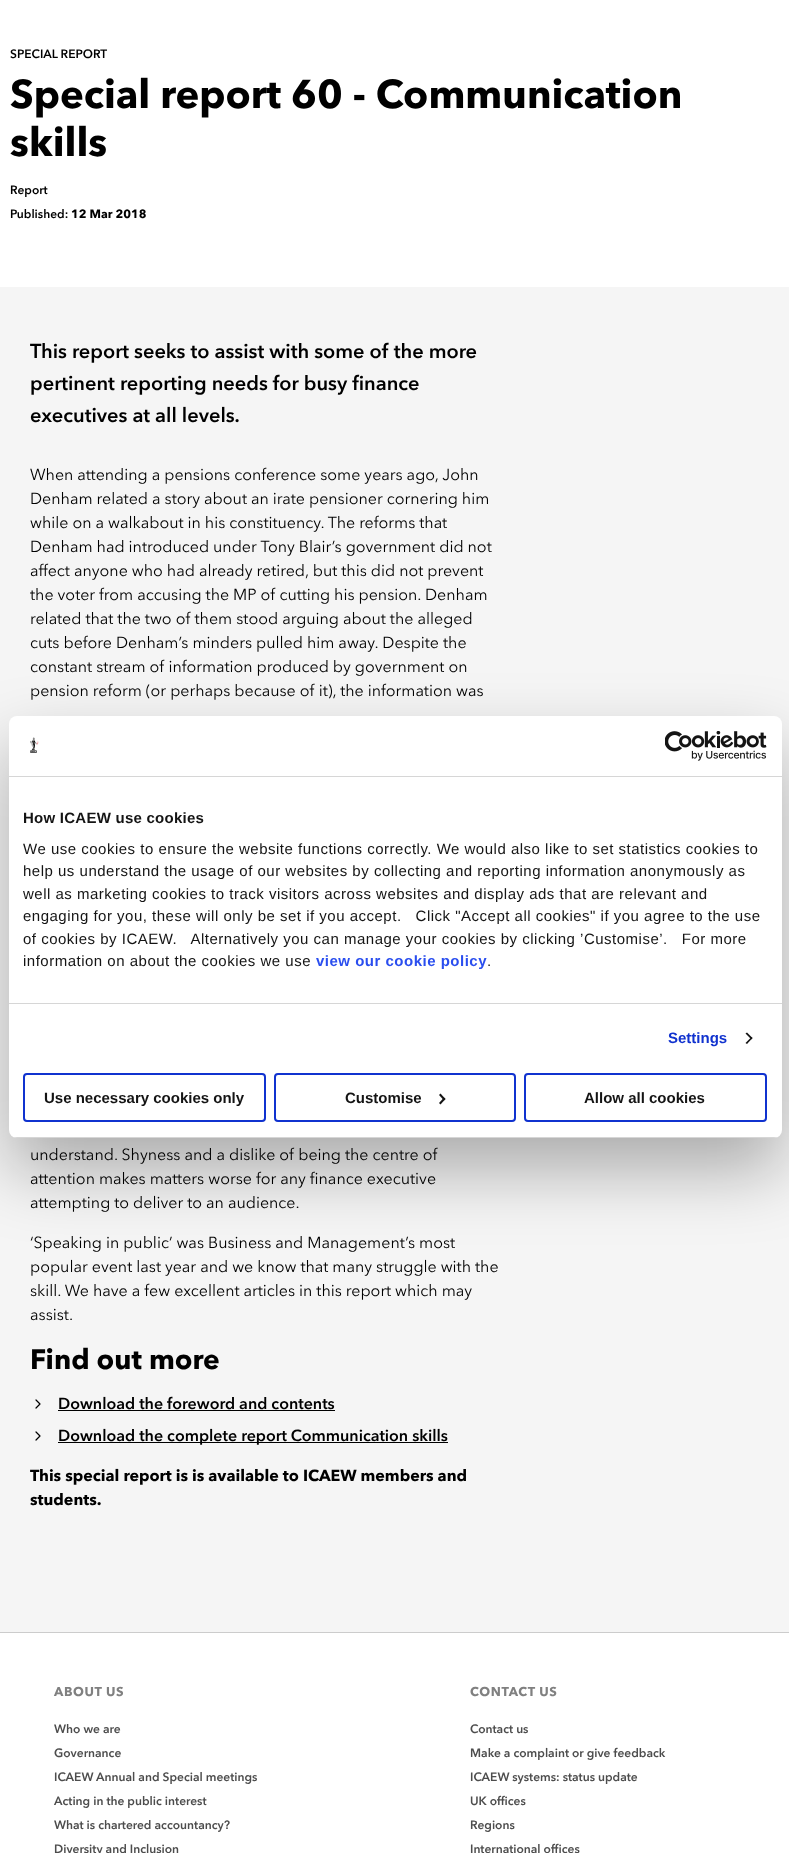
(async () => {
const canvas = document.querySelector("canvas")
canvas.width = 789
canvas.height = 1853
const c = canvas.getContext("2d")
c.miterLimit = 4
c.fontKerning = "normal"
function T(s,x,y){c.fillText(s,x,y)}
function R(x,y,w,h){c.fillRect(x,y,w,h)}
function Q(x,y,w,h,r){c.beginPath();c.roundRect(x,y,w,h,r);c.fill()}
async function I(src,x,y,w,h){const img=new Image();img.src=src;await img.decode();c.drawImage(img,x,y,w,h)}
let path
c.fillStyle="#fff"
R(0,0,789,1853)
c.font="bold 12px 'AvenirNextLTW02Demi'"
c.fillStyle="#000"
T("SPECIAL REPORT",10,58)
c.font="bold 40px 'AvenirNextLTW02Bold'"
T("Special report 60 - Communication",10,108)
T("skills",10,156)
c.font="bold 12px 'AvenirNextLTW02Demi'"
T("Report",10,194)
T("Published:",10,218)
c.font="bold 12px 'AvenirNextLTW02Bold'"
T("12 Mar 2018",71,218)
c.fillStyle="#f5f5f5"
R(0,287,789,1345)
c.font="bold 20px 'AvenirNextLTW02Demi'"
c.fillStyle="#000"
T("This report seeks to assist with some of the more",30,358)
T("pertinent reporting needs for busy finance",30,390)
T("executives at all levels.",30,422)
c.font="16px 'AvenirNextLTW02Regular'"
T("When attending a pensions conference some years ago, John",30,480)
T("Denham related a story about an irate pensioner cornering him",30,504)
T("while on a walkabout in his constituency. The reforms that",30,528)
T("Denham had introduced under Tony Blair’s government did not",30,552)
T("affect anyone who had already retired, but this did not prevent",30,576)
T("the voter from accusing the MP of cutting his pension. Denham",30,600)
T("related that the two of them stood arguing about the alleged",30,624)
T("cuts before Denham’s minders pulled him away. Despite the",30,648)
T("constant stream of information produced by government on",30,672)
T("pension reform (or perhaps because of it), the information was",30,696)
T("understand. Shyness and a dislike of being the centre of",30,1160)
T("attention makes matters worse for any finance executive",30,1184)
T("attempting to deliver to an audience.",30,1208)
T("‘Speaking in public’ was Business and Management’s most",30,1248)
T("popular event last year and we know that many struggle with the",30,1272)
T("skill. We have a few excellent articles in this report which may",30,1296)
T("assist.",30,1320)
c.font="bold 28px 'AvenirNextLTW02Bold'"
T("Find out more",30,1369)
path = new Path2D("M36 1408l4-4l-4-4")
c.strokeStyle="#000"
c.lineWidth=1.2
c.lineCap="round"
c.lineJoin="round"
c.stroke(path)
c.font="bold 16px 'AvenirNextLTW02Demi'"
T("Download the foreword and contents",58,1409)
R(58,1410,277,1)
path = new Path2D("M36 1440l4-4l-4-4")
c.stroke(path)
R(58,1442,390,1)
T("Download the complete report Communication skills",58,1441)
c.font="bold 16px 'AvenirNextLTW02Bold'"
T("This special report is is available to ICAEW members and",30,1481)
T("students.",30,1505)
c.fillStyle="#0000004d"
c.filter="blur(34px)"
c.beginPath()
c.roundRect(9,748,773,422,8)
c.fill()
c.filter="none"
c.fillStyle="#fff"
Q(9,716,773,422,8)
c.fillStyle="#d6d6d6"
R(9,776,773,1)
await I("1.png",30,737,9,16)
await I("2.png",665,731,102,30)
R(9,1003,773,1)
c.letterSpacing="0.25px"
c.font="bold 15px Liberation Sans"
c.fillStyle="#141414"
T("How ICAEW use cookies",23,823)
c.letterSpacing="0.5px"
c.font="15px Liberation Sans"
T("We use cookies to ensure the website functions correctly. We would also like to set statistics cookies to",23,854)
T("help us understand the usage of our websites by collecting and reporting information anonymously as",23,876)
T("well as marketing cookies to track visitors across websites and display ads that are relevant and",23,899)
T("engaging for you, these will only be set if you accept.   Click \"Accept all cookies\" if you agree to the use",23,921)
T("of cookies by ICAEW.   Alternatively you can manage your cookies by clicking ’Customise’.   For more",23,944)
T("information on about the cookies we use",23,966)
c.font="bold 15px Liberation Sans"
c.fillStyle="#2a4eef"
T("view our cookie policy",316,966)
c.font="15px Liberation Sans"
c.fillStyle="#141414"
T(".",487,966)
c.letterSpacing="0px"
c.font="bold 15px Liberation Sans"
c.fillStyle="#1032cf"
T("Settings",668,1043)
c.fillStyle="#141414"
path = new Path2D("M747 1032.5l5.5 5.5l-1 1.5l-6-6z")
c.fill(path)
path = new Path2D("M751.5 1037l1 1l-5.5 6l-1.5-1z")
c.fill(path)
c.save()
c.beginPath()
c.roundRect(9,716,773,422,8)
c.clip()
c.fillStyle="#d6d6d6"
R(9,1137,773,1)
c.restore()
c.beginPath()
c.roundRect(24,1074,241,47,3)
c.strokeStyle="#1032cf"
c.lineWidth=2
c.lineJoin="miter"
c.stroke()
T("Use necessary cookies only",44,1103)
c.beginPath()
c.roundRect(275,1074,240,47,3)
c.stroke()
T("Customise",345,1103)
path = new Path2D("M440.5 1093.5l5 5.5l-1.5 1.5l-5-5.5z")
c.fill(path)
path = new Path2D("M444 1097.5l1.5 1.5l-5 5.5l-1.5-1.5z")
c.fill(path)
c.beginPath()
c.roundRect(525,1074,241,47,3)
c.stroke()
T("Allow all cookies",584,1103)
c.fillStyle="#ccc"
R(0,1632,789,1)
c.letterSpacing="0.6px"
c.font="bold 12.75px 'AvenirNextLTW02Bold'"
c.fillStyle="#808080"
T("ABOUT US",54,1696)
c.letterSpacing="0px"
c.font="bold 12px 'AvenirNextLTW02Demi'"
c.fillStyle="#4d4d4d"
T("Who we are",54,1733)
T("Governance",54,1757)
T("ICAEW Annual and Special meetings",54,1781)
T("Acting in the public interest",54,1805)
T("What is chartered accountancy?",54,1829)
T("Diversity and Inclusion",54,1853)
c.letterSpacing="0.6px"
c.font="bold 12.75px 'AvenirNextLTW02Bold'"
c.fillStyle="#808080"
T("CONTACT US",470,1696)
c.letterSpacing="0px"
c.font="bold 12px 'AvenirNextLTW02Demi'"
c.fillStyle="#4d4d4d"
T("Contact us",470,1733)
T("Make a complaint or give feedback",470,1757)
T("ICAEW systems: status update",470,1781)
T("UK offices",470,1805)
T("Regions",470,1829)
T("International offices",470,1853)
})()
